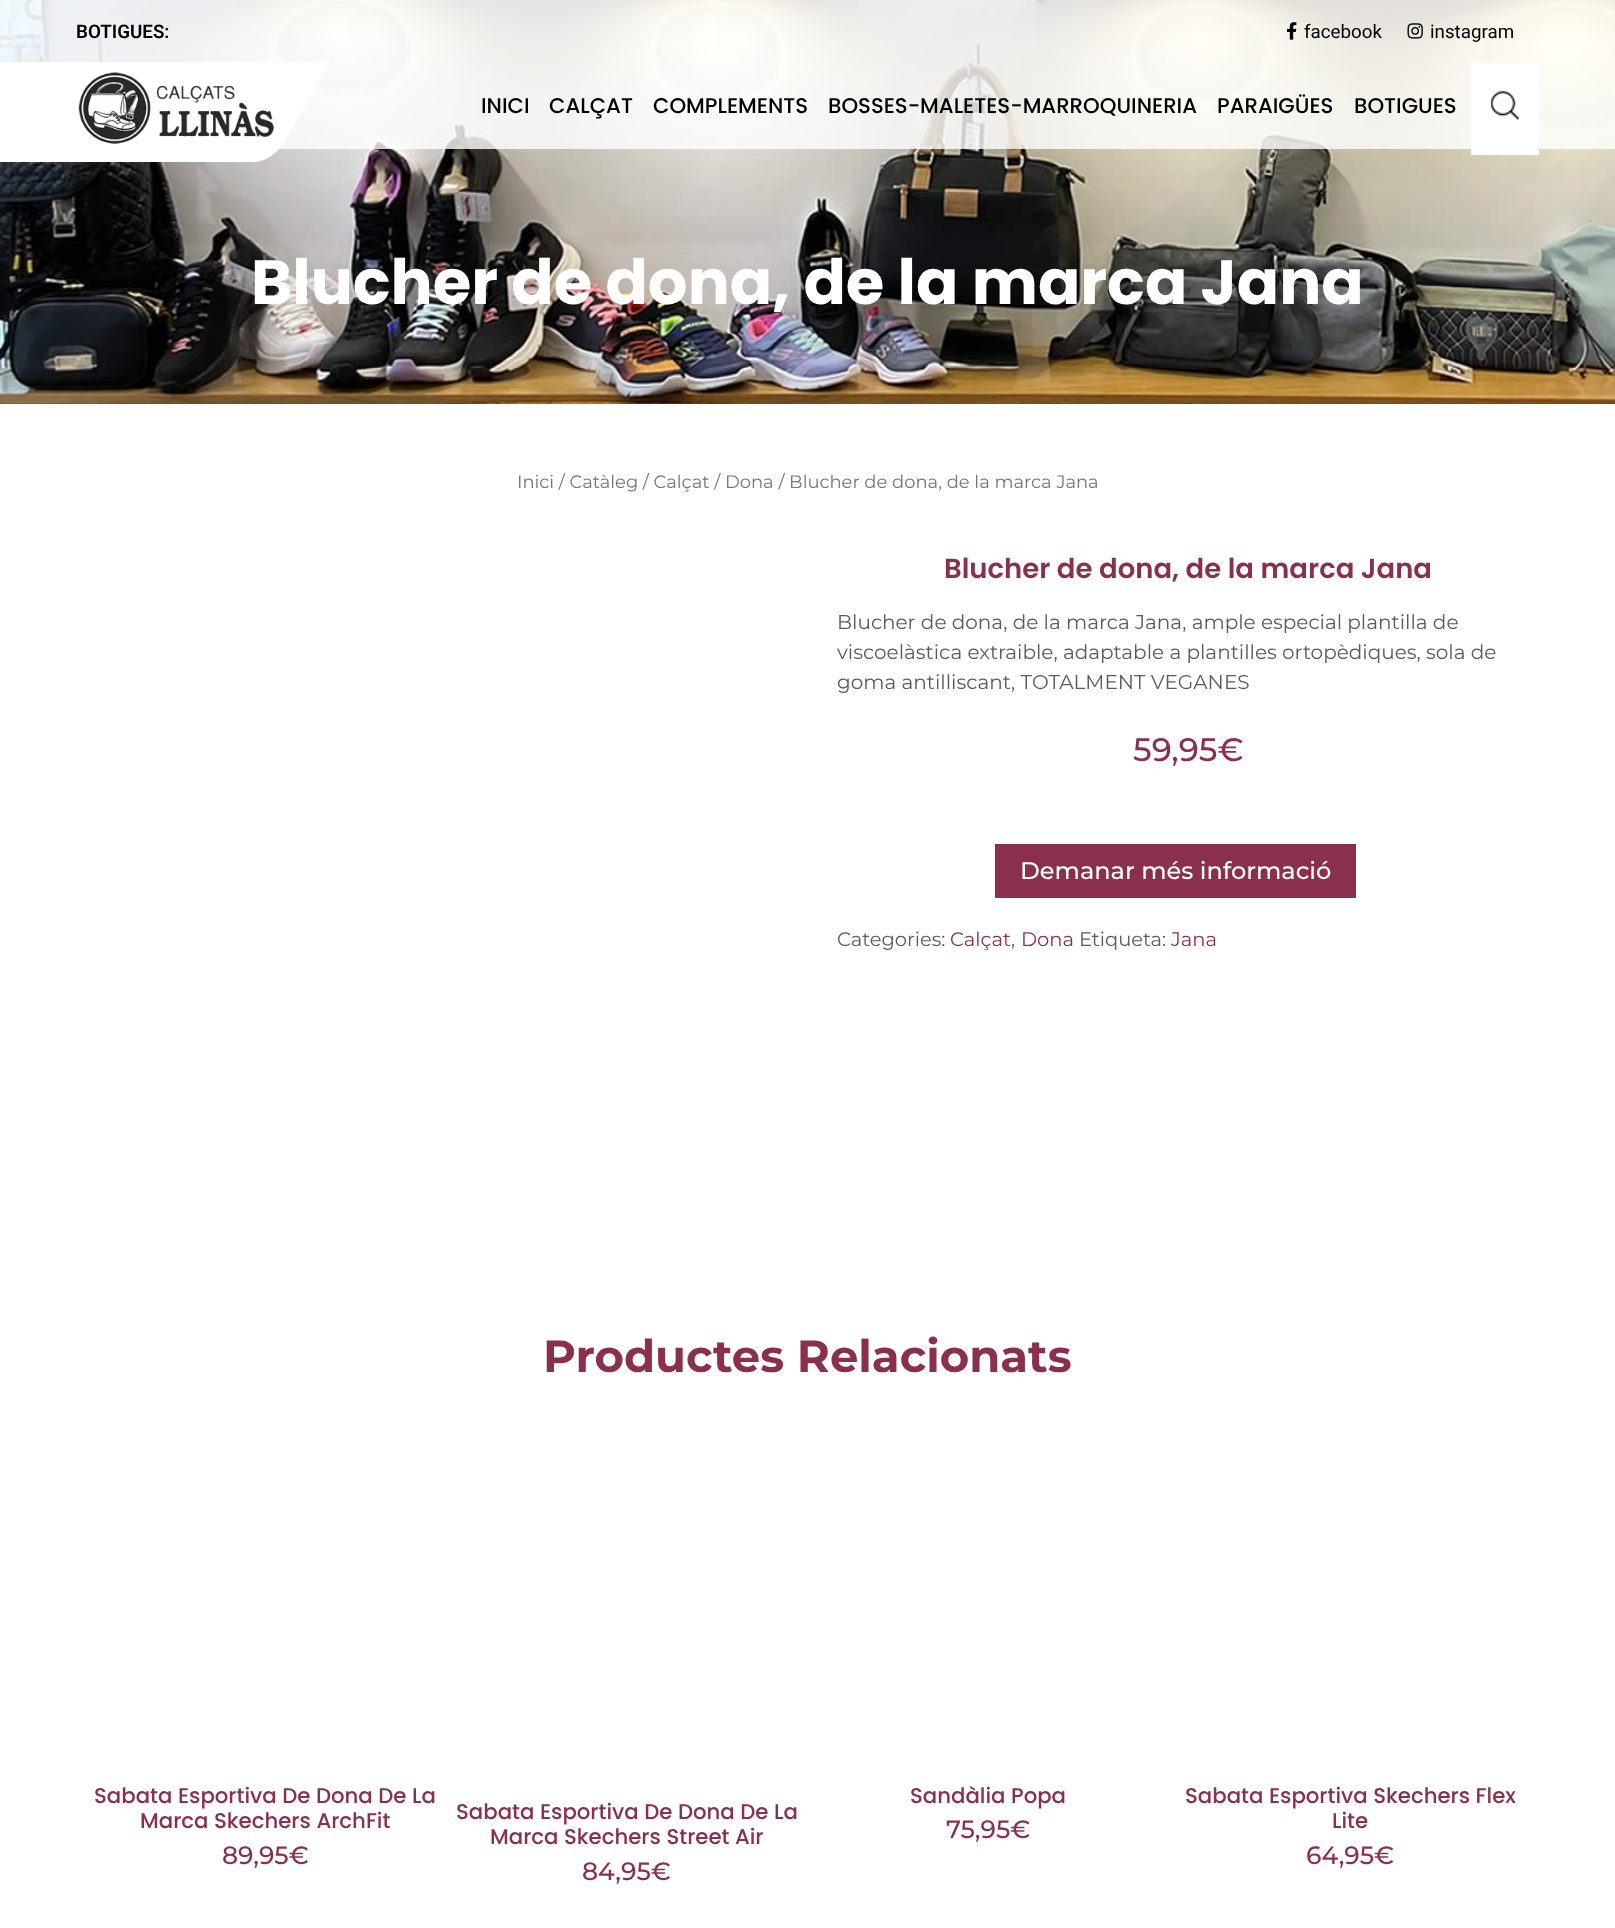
(async () => {
const canvas = document.querySelector("canvas")
canvas.width = 1615
canvas.height = 1928
const c = canvas.getContext("2d")
c.miterLimit = 4
c.fontKerning = "normal"
function T(s,x,y){c.fillText(s,x,y)}
function R(x,y,w,h){c.fillRect(x,y,w,h)}
async function I(src,x,y,w,h){const img=new Image();img.src=src;await img.decode();c.drawImage(img,x,y,w,h)}
let path
c.fillStyle="#fff"
R(0,0,1615,1928)
c.fillStyle="#545556"
R(0,403,1615,1)
await I("5.png",0,0,1615,404)
c.fillStyle="#ffffffcc"
R(0,0,1615,63)
c.font="600 18.75px Roboto"
c.fillStyle="#000"
T("BOTIGUES:",76,38)
await I("1.png",1287,22,10,18)
c.font="18.75px Roboto"
T("facebook",1304,38)
await I("2.png",1407,23,16,16)
T("instagram",1430,38)
c.fillStyle="#ffffffcc"
R(279,63,1336,86)
c.fillStyle="#fff"
path = new Path2D("M105 62h225l-47 82c-6 10-19 18-29 18h-207z")
c.fill(path)
path = new Path2D("M-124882 62h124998l-57 100h-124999z")
c.fill(path)
await I("3.png",78,72,196,72)
c.font="500 21.25px Poppins"
c.fillStyle="#000"
T("INICI",481,113)
T("CALÇAT",549,113)
T("COMPLEMENTS",653,113)
T("BOSSES-MALETES-MARROQUINERIA",828,113)
T("PARAIGÜES",1217,113)
T("BOTIGUES",1354,113)
c.fillStyle="#fff"
R(1471,63,68,92)
await I("4.png",1491,91,28,29)
c.font="bold 62.5px Poppins"
T("Blucher de dona, de la marca Jana",251,304)
c.font="17.95px Montserrat"
c.fillStyle="#767676"
T("Inici / Catàleg / Calçat / Dona / Blucher de dona, de la marca Jana",517,488)
c.font="600 27.5px Poppins"
c.fillStyle="#8a304d"
T("Blucher de dona, de la marca Jana",944,578)
c.font="20px Montserrat"
c.fillStyle="#5b5b5b"
T("Blucher de dona, de la marca Jana, ample especial plantilla de",837,629)
T("viscoelàstica extraible, adaptable a plantilles ortopèdiques, sola de",837,659)
T("goma antilliscant, TOTALMENT VEGANES",837,689)
c.font="500 32.5px Montserrat"
c.fillStyle="#8a304d"
T("59,95€",1133,761)
R(995,844,361,54)
c.font="500 24px Montserrat"
c.fillStyle="#fff"
T("Demanar més informació",1020,879)
c.font="19.5px Montserrat"
c.fillStyle="#5b5b5b"
T("Categories:",837,946)
c.fillStyle="#8a304d"
T("Calçat",950,946)
c.fillStyle="#5b5b5b"
T(",",1011,946)
c.fillStyle="#8a304d"
T("Dona",1021,946)
c.fillStyle="#5b5b5b"
T("Etiqueta:",1079,946)
c.fillStyle="#8a304d"
T("Jana",1171,946)
c.font="bold 45px Montserrat"
T("Productes Relacionats",543,1372)
c.font="500 21.25px Poppins"
T("Sabata Esportiva De Dona De La",94,1803)
T("Marca Skechers ArchFit",140,1828)
c.font="500 25px Montserrat"
T("89,95€",222,1864)
c.font="500 21.25px Poppins"
T("Sabata Esportiva De Dona De La",456,1819)
T("Marca Skechers Street Air",490,1844)
c.font="500 25px Montserrat"
T("84,95€",582,1880)
c.font="500 21.25px Poppins"
T("Sandàlia Popa",910,1803)
c.font="500 25px Montserrat"
T("75,95€",946,1838)
c.font="500 21.25px Poppins"
T("Sabata Esportiva Skechers Flex",1185,1803)
T("Lite",1332,1828)
c.font="500 25px Montserrat"
T("64,95€",1306,1864)
})()
